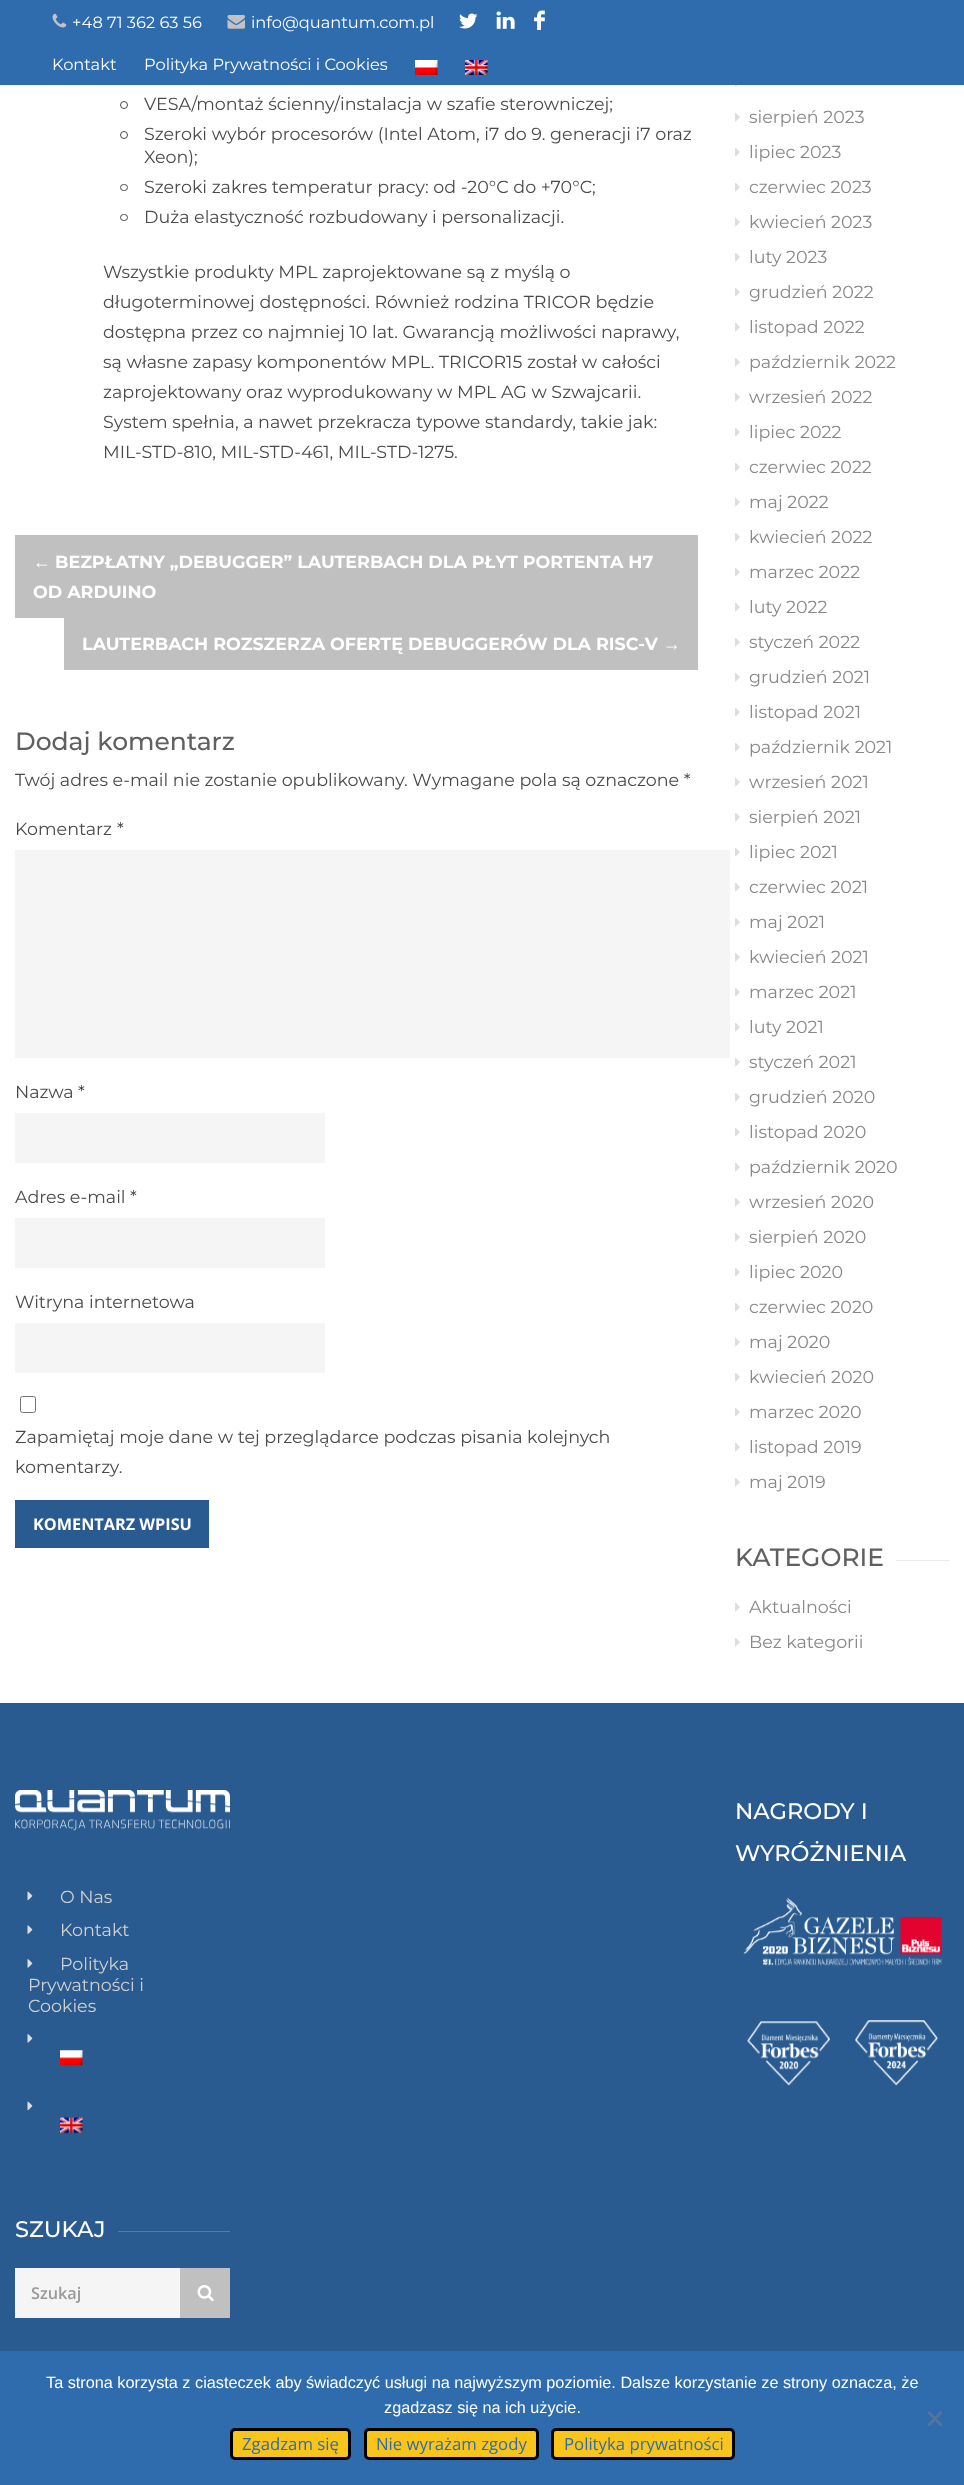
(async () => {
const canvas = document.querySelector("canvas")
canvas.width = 964
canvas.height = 2485
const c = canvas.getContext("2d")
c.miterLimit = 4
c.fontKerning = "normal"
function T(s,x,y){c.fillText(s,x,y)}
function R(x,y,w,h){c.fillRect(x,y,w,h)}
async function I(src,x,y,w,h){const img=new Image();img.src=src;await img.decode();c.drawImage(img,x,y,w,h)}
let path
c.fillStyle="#fff"
R(0,0,964,2485)
c.fillStyle="#2e6cae"
R(0,0,964,85)
await I("1.png",52,13,15,15)
c.font="16.25px Montserrat"
c.fillStyle="#fff"
T("+48 71 362 63 56",72,28)
await I("2.png",227,15,18,14)
T("info@quantum.com.pl",251,28)
await I("3.png",459,13,19,16)
await I("4.png",496,11,19,18)
await I("5.png",534,10,11,20)
T("Kontakt",52,70)
T("Polityka Prywatności i Cookies",144,70)
await I("6.png",415,60,23,15)
await I("7.png",465,60,23,15)
c.beginPath()
c.arc(124,105,3.5,0,7)
c.strokeStyle="#4a4a4a"
c.stroke()
c.font="17.5px Montserrat"
c.fillStyle="#4a4a4a"
T("VESA/montaż ścienny/instalacja w szafie sterowniczej;",144,110)
c.beginPath()
c.arc(124,135,3.5,0,7)
c.stroke()
T("Szeroki wybór procesorów (Intel Atom, i7 do 9. generacji i7 oraz",144,140)
T("Xeon);",144,163)
c.beginPath()
c.roundRect(120.5,184.5,7,6,3)
c.stroke()
T("Szeroki zakres temperatur pracy: od -20°C do +70°C;",144,193)
c.beginPath()
c.roundRect(120.5,214.5,7,6,3)
c.stroke()
T("Duża elastyczność rozbudowany i personalizacji.",144,223)
T("Wszystkie produkty MPL zaprojektowane są z myślą o",103,278)
T("długoterminowej dostępności. Również rodzina TRICOR będzie",103,308)
T("dostępna przez co najmniej 10 lat. Gwarancją możliwości naprawy,",103,338)
T("są własne zapasy komponentów MPL. TRICOR15 został w całości",103,368)
T("zaprojektowany oraz wyprodukowany w MPL AG w Szwajcarii.",103,398)
T("System spełnia, a nawet przekracza typowe standardy, takie jak:",103,428)
T("MIL-STD-810, MIL-STD-461, MIL-STD-1275.",103,458)
c.fillStyle="#c0c0c0"
R(15,535,683,83)
c.font="bold 17.5px Liberation Serif"
c.fillStyle="#fff"
T("←",33,568)
c.font="bold 17.5px Montserrat"
T("BEZPŁATNY „DEBUGGER” LAUTERBACH DLA PŁYT PORTENTA H7",55,568)
T("OD ARDUINO",33,598)
c.fillStyle="#c0c0c0"
R(64,618,634,52)
c.fillStyle="#fff"
T("LAUTERBACH ROZSZERZA OFERTĘ DEBUGGERÓW DLA RISC-V",82,650)
c.font="bold 17.5px Liberation Serif"
T("→",663,650)
c.font="500 25px Montserrat"
c.fillStyle="#606060"
T("Dodaj komentarz",15,750)
c.font="17.5px Montserrat"
c.fillStyle="#4a4a4a"
T("Twój adres e-mail nie zostanie opublikowany. Wymagane pola są oznaczone *",15,786)
T("Komentarz",15,835)
c.fillStyle="#444"
T("*",117,835)
c.fillStyle="#f5f5f5"
R(15,850,715,208)
c.fillStyle="#4a4a4a"
T("Nazwa",15,1098)
c.fillStyle="#444"
T("*",78,1098)
c.fillStyle="#f5f5f5"
R(15,1113,310,50)
c.fillStyle="#4a4a4a"
T("Adres e-mail",15,1203)
c.fillStyle="#444"
T("*",130,1203)
c.fillStyle="#f5f5f5"
R(15,1218,310,50)
c.fillStyle="#4a4a4a"
T("Witryna internetowa",15,1308)
c.fillStyle="#f5f5f5"
R(15,1323,310,50)
c.beginPath()
c.roundRect(20.5,1396.5,15,16,2)
c.strokeStyle="#767676"
c.stroke()
c.fillStyle="#4a4a4a"
T("Zapamiętaj moje dane w tej przeglądarce podczas pisania kolejnych",15,1443)
T("komentarzy.",15,1473)
c.fillStyle="#295b90"
R(15,1500,194,48)
c.font="bold 16.25px Open Sans"
c.fillStyle="#fff"
T("KOMENTARZ WPISU",33,1530)
await I("8.png",735,85,2,2)
await I("9.png",735,113,5,9)
c.font="17.5px Montserrat"
c.fillStyle="#888"
T("sierpień 2023",749,123)
await I("9.png",735,148,5,9)
T("lipiec 2023",749,158)
await I("9.png",735,183,5,9)
T("czerwiec 2023",749,193)
await I("9.png",735,218,5,9)
T("kwiecień 2023",749,228)
await I("9.png",735,253,5,9)
T("luty 2023",749,263)
await I("9.png",735,288,5,9)
T("grudzień 2022",749,298)
await I("9.png",735,323,5,9)
T("listopad 2022",749,333)
await I("9.png",735,358,5,9)
T("październik 2022",749,368)
await I("9.png",735,393,5,9)
T("wrzesień 2022",749,403)
await I("9.png",735,428,5,9)
T("lipiec 2022",749,438)
await I("9.png",735,463,5,9)
T("czerwiec 2022",749,473)
await I("9.png",735,498,5,9)
T("maj 2022",749,508)
await I("9.png",735,533,5,9)
T("kwiecień 2022",749,543)
await I("9.png",735,568,5,9)
T("marzec 2022",749,578)
await I("9.png",735,603,5,9)
T("luty 2022",749,613)
await I("9.png",735,638,5,9)
T("styczeń 2022",749,648)
await I("9.png",735,673,5,9)
T("grudzień 2021",749,683)
await I("9.png",735,708,5,9)
T("listopad 2021",749,718)
await I("9.png",735,743,5,9)
T("październik 2021",749,753)
await I("9.png",735,778,5,9)
T("wrzesień 2021",749,788)
await I("9.png",735,813,5,9)
T("sierpień 2021",749,823)
await I("9.png",735,848,5,9)
T("lipiec 2021",749,858)
await I("9.png",735,883,5,9)
T("czerwiec 2021",749,893)
await I("9.png",735,918,5,9)
T("maj 2021",749,928)
await I("9.png",735,953,5,9)
T("kwiecień 2021",749,963)
await I("9.png",735,988,5,9)
T("marzec 2021",749,998)
await I("9.png",735,1023,5,9)
T("luty 2021",749,1033)
await I("9.png",735,1058,5,9)
T("styczeń 2021",749,1068)
await I("9.png",735,1093,5,9)
T("grudzień 2020",749,1103)
await I("9.png",735,1128,5,9)
T("listopad 2020",749,1138)
await I("9.png",735,1163,5,9)
T("październik 2020",749,1173)
await I("9.png",735,1198,5,9)
T("wrzesień 2020",749,1208)
await I("9.png",735,1233,5,9)
T("sierpień 2020",749,1243)
await I("9.png",735,1268,5,9)
T("lipiec 2020",749,1278)
await I("9.png",735,1303,5,9)
T("czerwiec 2020",749,1313)
await I("9.png",735,1338,5,9)
T("maj 2020",749,1348)
await I("9.png",735,1373,5,9)
T("kwiecień 2020",749,1383)
await I("9.png",735,1408,5,9)
T("marzec 2020",749,1418)
await I("9.png",735,1443,5,9)
T("listopad 2019",749,1453)
await I("9.png",735,1478,5,9)
T("maj 2019",749,1488)
c.font="500 25px Montserrat"
c.fillStyle="#606060"
T("KATEGORIE",735,1566)
c.fillStyle="#ebebeb"
R(896,1560,54,1)
await I("9.png",735,1603,5,9)
c.font="17.5px Montserrat"
c.fillStyle="#888"
T("Aktualności",749,1613)
await I("9.png",735,1638,5,9)
T("Bez kategorii",749,1648)
c.fillStyle="#295b90"
R(0,1703,964,648)
c.font="500 22.5px Montserrat"
c.fillStyle="#fff"
T("NAGRODY I",735,1819)
T("WYRÓŻNIENIA",735,1861)
await I("10.png",743,1897,199,69)
await I("11.png",747,2021,83,65)
await I("12.png",855,2020,83,66)
await I("13.png",15,1790,215,41)
await I("14.png",27,1891,6,10)
c.font="17.5px Montserrat"
c.fillStyle="#d0d0d0"
T("O Nas",60,1903)
await I("15.png",27,1925,6,9)
T("Kontakt",60,1936)
await I("16.png",27,1959,6,9)
T("Polityka",60,1970)
T("Prywatności i",28,1991)
T("Cookies",28,2012)
await I("16.png",27,2034,6,9)
await I("17.png",60,2050,23,16)
await I("14.png",27,2101,6,10)
await I("18.png",60,2117,23,17)
c.font="500 22.5px Montserrat"
c.fillStyle="#fff"
T("SZUKAJ",15,2237)
c.fillStyle="#747474"
R(118,2231,112,1)
c.fillStyle="#f5f5f5"
R(15,2268,165,50)
c.font="600 16.25px Open Sans"
c.fillStyle="#999"
T("Szukaj",31,2299)
c.fillStyle="#c0c0c0"
R(180,2268,50,50)
await I("19.png",197,2285,17,17)
c.fillStyle="#2e6cae"
R(0,2351,964,134)
c.font="16.25px Liberation Sans"
c.fillStyle="#fff"
T("Ta strona korzysta z ciasteczek aby świadczyć usługi na najwyższym poziomie. Dalsze korzystanie ze strony oznacza, że",46,2388)
T("zgadzasz się na ich użycie.",384,2413)
c.fillStyle="#577697"
path = new Path2D("M940.5 2411l2 2l-13 13.5l-2-2z")
c.fill(path)
path = new Path2D("M927.5 2413l2-2l13 13.5l-2 2z")
c.fill(path)
c.fillStyle="#fac51a"
c.beginPath()
c.roundRect(231.5,2429.5,118,29,3.5)
c.fill()
c.strokeStyle="#000"
c.lineWidth=3
c.stroke()
c.font="16.75px Open Sans"
c.fillStyle="#2e6cae"
T("Zgadzam się",242,2450)
c.fillStyle="#fac51a"
c.beginPath()
c.roundRect(365.5,2429.5,172,29,3.5)
c.fill()
c.stroke()
c.fillStyle="#2e6cae"
T("Nie wyrażam zgody",376,2450)
c.fillStyle="#fac51a"
c.beginPath()
c.roundRect(552.5,2429.5,181,29,3.5)
c.fill()
c.stroke()
c.fillStyle="#2e6cae"
T("Polityka prywatności",564,2450)
})()
